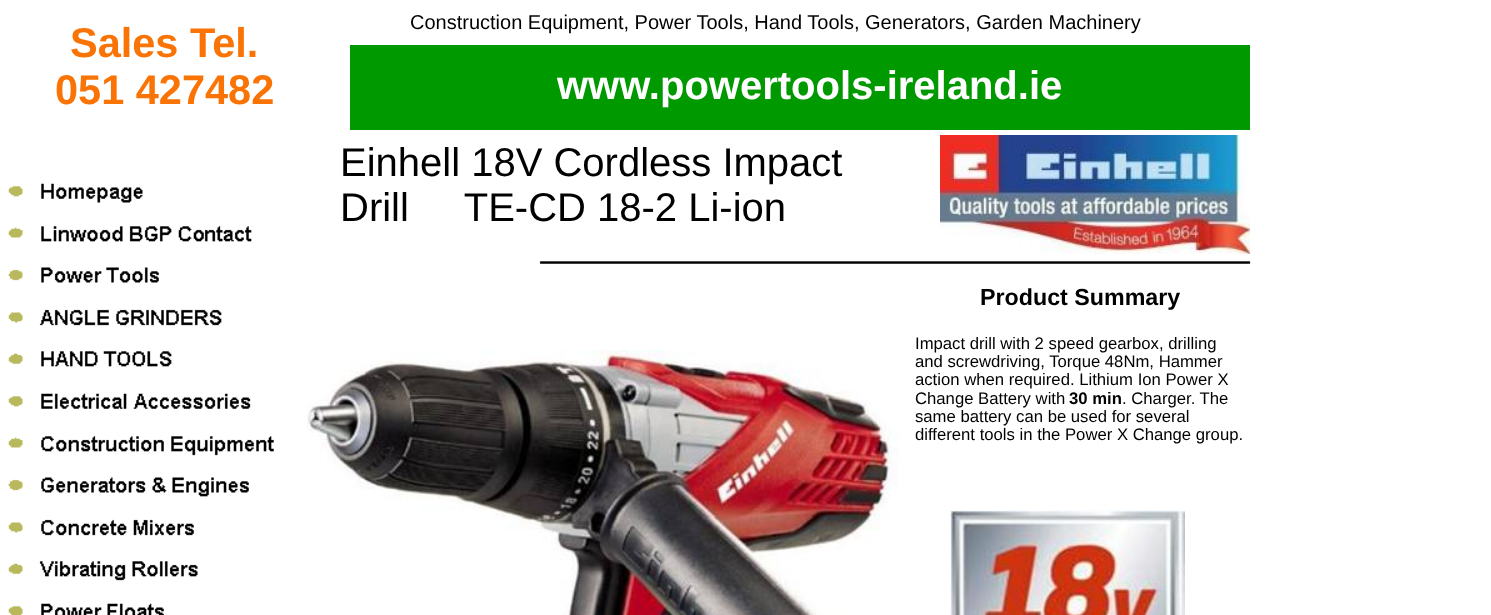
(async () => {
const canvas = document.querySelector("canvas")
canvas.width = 1491
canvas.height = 615
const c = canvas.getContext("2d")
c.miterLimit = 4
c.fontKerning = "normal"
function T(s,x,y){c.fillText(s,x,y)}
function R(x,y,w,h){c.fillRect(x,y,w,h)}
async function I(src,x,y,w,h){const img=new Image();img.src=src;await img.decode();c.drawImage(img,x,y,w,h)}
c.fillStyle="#fff"
R(0,0,1491,615)
c.font="20px Liberation Sans"
c.fillStyle="#000"
T("Construction Equipment, Power Tools, Hand Tools, Generators, Garden Machinery",410,29)
c.font="bold 41.5px Liberation Sans"
c.fillStyle="#fa7305"
T("Sales Tel.",70,57)
T("051 427482",55,104)
c.fillStyle="#090"
R(350,45,900,85)
c.font="bold 40px Liberation Sans"
c.fillStyle="#fff"
T("www.powertools-ireland.ie",557,99)
await I("1.png",8,183,266,432)
c.font="40px Liberation Sans"
c.fillStyle="#000"
T("Einhell 18V Cordless Impact",340,176)
T("Drill     TE-CD 18-2 Li-ion",340,221)
await I("2.png",940,135,310,119)
await I("3.png",539,261,712,3)
c.font="bold 23.25px Liberation Sans"
T("Product Summary",980,305)
await I("4.png",307,350,592,265)
c.font="16.7px Liberation Sans"
T("Impact drill with 2 speed gearbox, drilling",915,349)
T("and screwdriving, Torque 48Nm, Hammer",915,367)
T("action when required. Lithium Ion Power X",915,385)
T("Change Battery with",915,404)
c.font="bold 16.7px Liberation Sans"
T("30 min",1069,404)
c.font="16.7px Liberation Sans"
T(". Charger. The",1122,404)
T("same battery can be used for several",915,422)
T("different tools in the Power X Change group.",915,440)
await I("5.png",950,510,235,105)
})()
